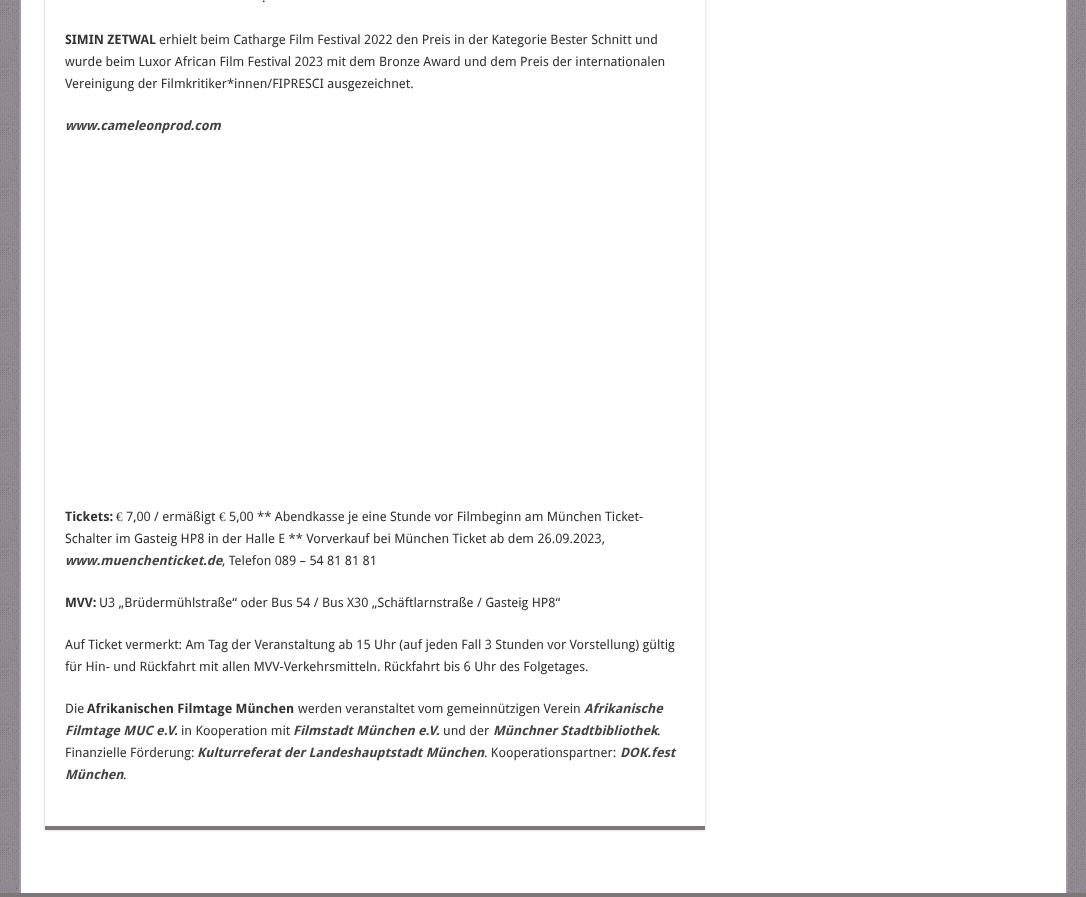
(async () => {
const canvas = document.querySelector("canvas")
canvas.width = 1086
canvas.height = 897
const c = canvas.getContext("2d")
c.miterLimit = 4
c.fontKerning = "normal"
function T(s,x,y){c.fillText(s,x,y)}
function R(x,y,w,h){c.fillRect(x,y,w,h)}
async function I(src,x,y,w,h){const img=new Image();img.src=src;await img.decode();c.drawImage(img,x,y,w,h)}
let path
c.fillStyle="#7a717a"
R(0,0,1086,897)
await I("1.png",0,0,1086,893)
c.fillStyle="#cacaca"
c.filter="blur(1.5px)"
c.beginPath()
c.rect(21,-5,1045,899)
c.fill()
c.filter="none"
c.fillStyle="#fff"
R(21,0,1045,893)
c.save()
path = new Path2D("M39 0h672v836h-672zm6-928h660v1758h-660z")
c.clip(path,"evenodd")
c.fillStyle="#cacaca"
c.filter="blur(1.5px)"
c.beginPath()
c.rect(45,-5,660,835)
c.fill()
c.filter="none"
c.restore()
c.fillStyle="#7d777a"
R(45,826,660,4)
c.font="13px Droid Sans"
c.fillStyle="#333"
T(".",262,2)
c.font="bold 13px Droid Sans"
T("SIMIN ZETWAL",65,44)
c.font="13px Droid Sans"
T("erhielt beim Catharge Film Festival 2022 den Preis in der Kategorie Bester Schnitt und",159,44)
T("wurde beim Luxor African Film Festival 2023 mit dem Bronze Award und dem Preis der internationalen",65,66)
T("Vereinigung der Filmkritiker*innen/FIPRESCI ausgezeichnet.",65,88)
c.font="italic bold 13px Droid Sans"
c.fillStyle="#444"
T("www.cameleonprod.com",65,130)
c.font="bold 13px Droid Sans"
c.fillStyle="#333"
T("Tickets:",65,521)
c.font="13px Liberation Serif"
T("€",116,521)
c.font="13px Droid Sans"
T("7,00 / ermäßigt",126,521)
c.font="13px Liberation Serif"
T("€",219,521)
c.font="13px Droid Sans"
T("5,00 ** Abendkasse je eine Stunde vor Filmbeginn am München Ticket-",229,521)
T("Schalter im Gasteig HP8 in der Halle E ** Vorverkauf bei München Ticket ab dem 26.09.2023,",65,543)
c.font="italic bold 13px Droid Sans"
c.fillStyle="#444"
T("www.muenchenticket.de",65,565)
c.font="13px Droid Sans"
c.fillStyle="#333"
T(", Telefon 089 – 54 81 81 81",222,565)
c.font="bold 13px Droid Sans"
T("MVV:",65,607)
c.font="13px Droid Sans"
T("U3 „Brüdermühlstraße“ oder Bus 54 / Bus X30 „Schäftlarnstraße / Gasteig HP8“",99,607)
T("Auf Ticket vermerkt: Am Tag der Veranstaltung ab 15 Uhr (auf jeden Fall 3 Stunden vor Vorstellung) gültig",65,649)
T("für Hin- und Rückfahrt mit allen MVV-Verkehrsmitteln. Rückfahrt bis 6 Uhr des Folgetages.",65,671)
T("Die",65,713)
c.font="bold 13px Droid Sans"
T("Afrikanischen Filmtage München",87,713)
c.font="13px Droid Sans"
T("werden veranstaltet vom gemeinnützigen Verein",298,713)
c.font="italic bold 13px Droid Sans"
c.fillStyle="#444"
T("Afrikanische",584,713)
T("Filmtage MUC e.V.",65,735)
c.font="13px Droid Sans"
c.fillStyle="#333"
T("in Kooperation mit",181,735)
c.font="italic bold 13px Droid Sans"
c.fillStyle="#444"
T("Filmstadt München e.V.",293,735)
c.font="13px Droid Sans"
c.fillStyle="#333"
T("und der",443,735)
c.font="italic bold 13px Droid Sans"
c.fillStyle="#444"
T("Münchner Stadtbibliothek",493,735)
c.font="13px Droid Sans"
c.fillStyle="#333"
T(".",657,735)
T("Finanzielle Förderung:",65,757)
c.font="italic bold 13px Droid Sans"
c.fillStyle="#444"
T("Kulturreferat der Landeshauptstadt München",197,757)
c.font="13px Droid Sans"
c.fillStyle="#333"
T(". Kooperationspartner:",484,757)
c.font="italic bold 13px Droid Sans"
c.fillStyle="#444"
T("DOK.fest",620,757)
T("München",65,779)
c.font="13px Droid Sans"
c.fillStyle="#333"
T(".",123,779)
c.fillStyle="#7d777a"
R(0,893,1086,4)
})()
